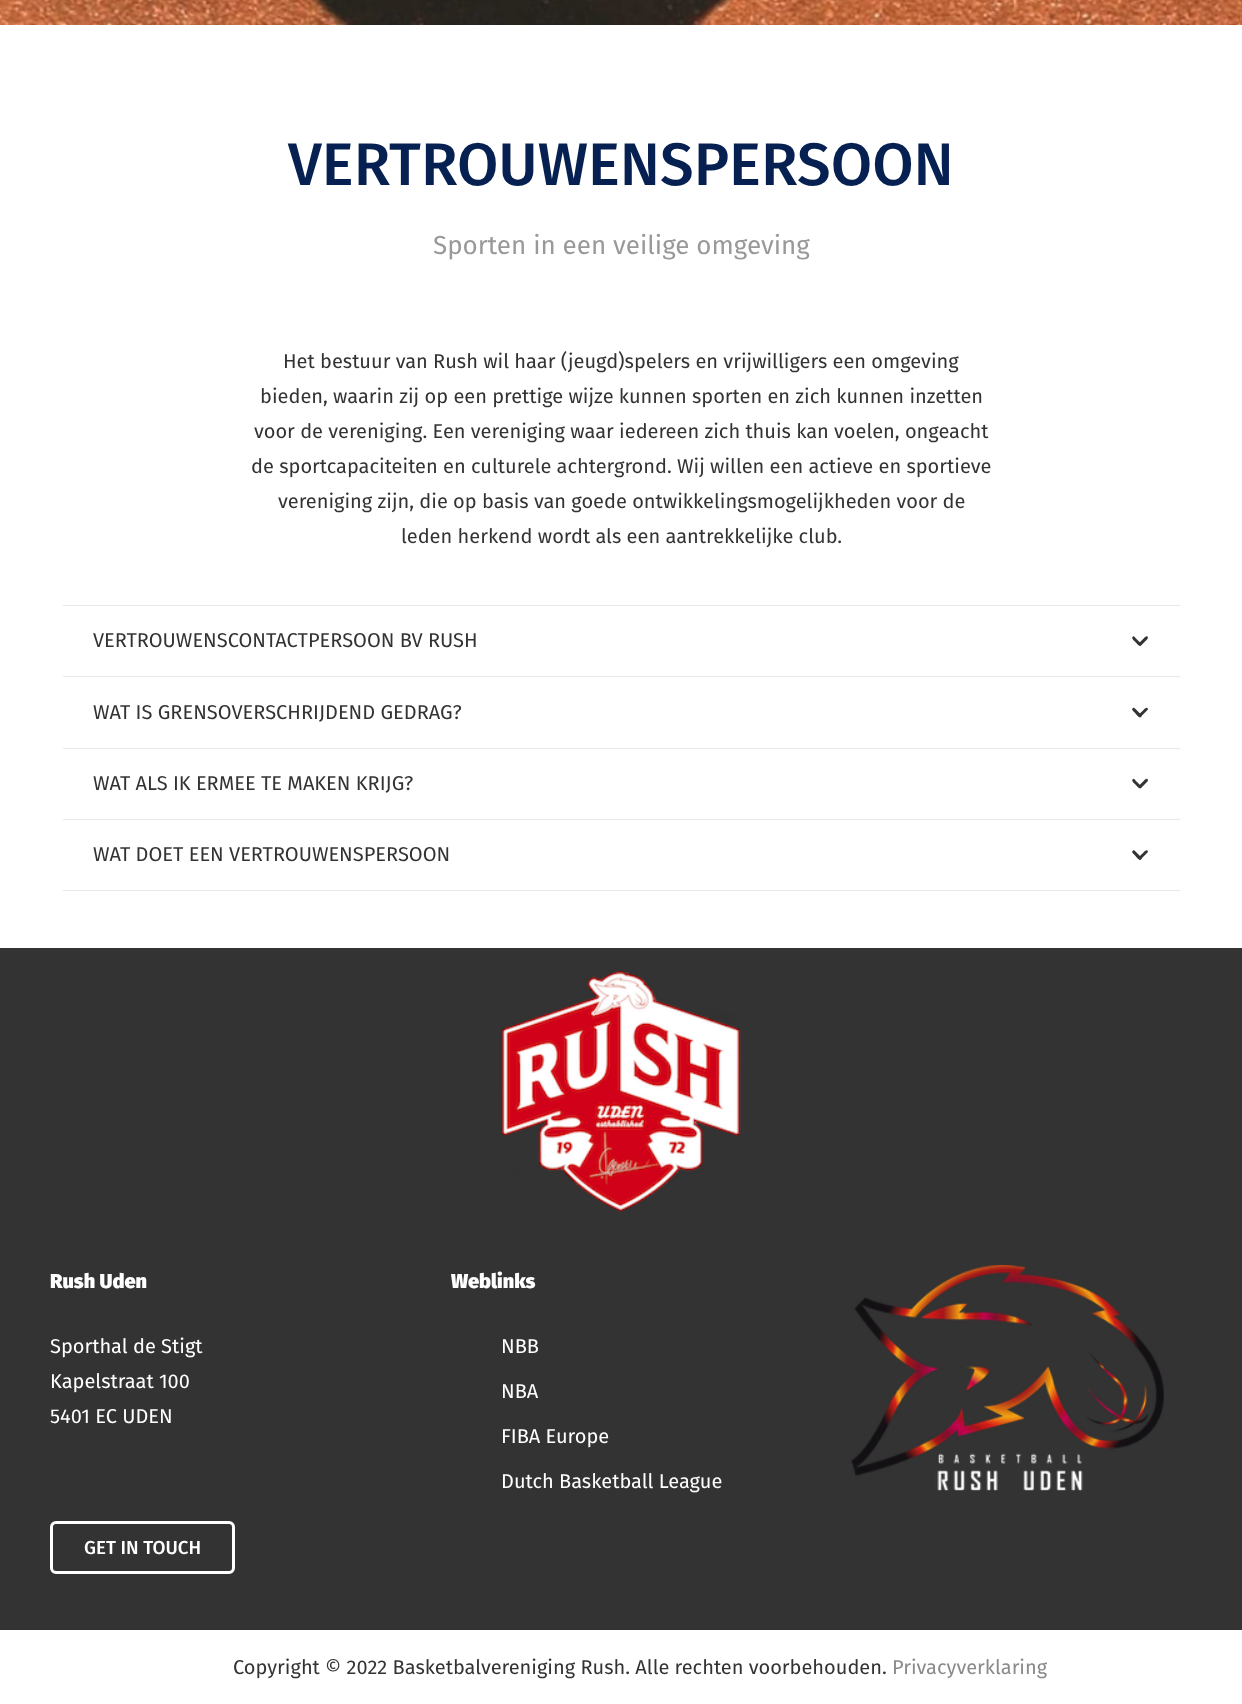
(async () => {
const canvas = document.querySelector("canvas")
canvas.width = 1242
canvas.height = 1704
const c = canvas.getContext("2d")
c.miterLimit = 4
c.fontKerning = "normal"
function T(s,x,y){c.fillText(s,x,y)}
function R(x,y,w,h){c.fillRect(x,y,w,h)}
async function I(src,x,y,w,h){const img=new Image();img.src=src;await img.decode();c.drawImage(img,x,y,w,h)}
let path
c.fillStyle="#fff"
R(0,0,1242,1704)
await I("1.png",0,0,1242,25)
c.font="500 60px Fira Sans"
c.fillStyle="#062051"
T("VERTROUWENSPERSOON",288,185)
c.font="26px Fira Sans"
c.fillStyle="#999"
T("Sporten in een veilige omgeving",433,254)
c.font="20px Fira Sans"
c.fillStyle="#333"
T("Het bestuur van Rush wil haar (jeugd)spelers en vrijwilligers een omgeving",283,368)
T("bieden, waarin zij op een prettige wijze kunnen sporten en zich kunnen inzetten",260,403)
T("voor de vereniging. Een vereniging waar iedereen zich thuis kan voelen, ongeacht",254,438)
T("de sportcapaciteiten en culturele achtergrond. Wij willen een actieve en sportieve",251,473)
T("vereniging zijn, die op basis van goede ontwikkelingsmogelijkheden voor de",278,508)
T("leden herkend wordt als een aantrekkelijke club.",401,543)
c.fillStyle="#e8e8e8"
R(63,605,1117,1)
c.fillStyle="#333"
T("VERTROUWENSCONTACTPERSOON BV RUSH",93,647)
path = new Path2D("M1132.5 637c1-1.5 2-.5 3 1l4.5 4.5c1 1 2 2 1 3c-2 1.5-4.5-2.5-5.5-3.5c-.5-.5-4.5-3.5-3-5z")
c.fill(path)
path = new Path2D("M1147.5 636.5c1 1.5 0 2.5-1 3.5l-4.5 4.5c-1 1-2 2-3 .5c-1.5-1.5 2.5-4 3-5c1-.5 4-5 5.5-3.5z")
c.fill(path)
c.fillStyle="#e8e8e8"
R(63,676,1117,1)
c.fillStyle="#333"
T("WAT IS GRENSOVERSCHRIJDEND GEDRAG?",93,719)
path = new Path2D("M1132.5 708.5c1-1.5 2-.5 3 .5l4.5 4.5c1 1 2 2 1 3.5c-2 1.5-4.5-2.5-5.5-3.5c-.5-1-4.5-3.5-3-5z")
c.fill(path)
path = new Path2D("M1147.5 708c1 1.5 0 2-1 3l-4.5 4.5c-1 1.5-2 2.5-3 1c-1.5-1.5 2.5-4.5 3-5c1-1 4-5 5.5-3.5z")
c.fill(path)
c.fillStyle="#e8e8e8"
R(63,748,1117,1)
c.fillStyle="#333"
T("WAT ALS IK ERMEE TE MAKEN KRIJG?",93,790)
path = new Path2D("M1132.5 779.5c1-1.5 2-.5 3 1l4.5 4.5c1 1 2 2 1 3c-2 1.5-4.5-2.5-5.5-3.5c-.5-.5-4.5-3.5-3-5z")
c.fill(path)
path = new Path2D("M1147.5 779c1 1.5 0 2.5-1 3.5l-4.5 4.5c-1 1-2 2-3 .5c-1.5-1.5 2.5-4 3-5c1-.5 4-5 5.5-3.5z")
c.fill(path)
c.fillStyle="#e8e8e8"
R(63,819,1117,1)
R(63,890,1117,1)
c.fillStyle="#333"
T("WAT DOET EEN VERTROUWENSPERSOON",93,861)
path = new Path2D("M1132.5 851c1-1.5 2-.5 3 .5l4.5 4.5c1 1 2 2 1 3.5c-2 1.5-4.5-2.5-5.5-3.5c-.5-1-4.5-3.5-3-5z")
c.fill(path)
path = new Path2D("M1147.5 850.5c1 1.5 0 2-1 3l-4.5 4.5c-1 1.5-2 2.5-3 1c-1.5-1.5 2.5-4.5 3-5c1-1 4-5 5.5-3.5z")
c.fill(path)
R(0,948,1242,682)
await I("2.png",501,971,240,241)
c.font="900 20px Fira Sans"
c.fillStyle="#fff"
T("Rush Uden",50,1288)
c.font="20px Fira Sans"
T("Sporthal de Stigt",50,1353)
T("Kapelstraat 100",50,1388)
T("5401 EC UDEN",50,1423)
c.beginPath()
c.roundRect(51.5,1522.5,182,50,4.5)
c.strokeStyle="#fff"
c.lineWidth=3
c.stroke()
c.font="500 18.75px Fira Sans"
T("GET IN TOUCH",84,1554)
c.font="900 20px Fira Sans"
T("Weblinks",451,1288)
c.font="20px Fira Sans"
T("NBB",501,1353)
T("NBA",501,1398)
T("FIBA Europe",501,1443)
T("Dutch Basketball League",501,1488)
await I("3.png",851,1265,313,226)
c.fillStyle="#333"
T("Copyright © 2022 Basketbalvereniging Rush. Alle rechten voorbehouden.",233,1674)
c.fillStyle="#8a8a8a"
T("Privacyverklaring",892,1674)
})()
